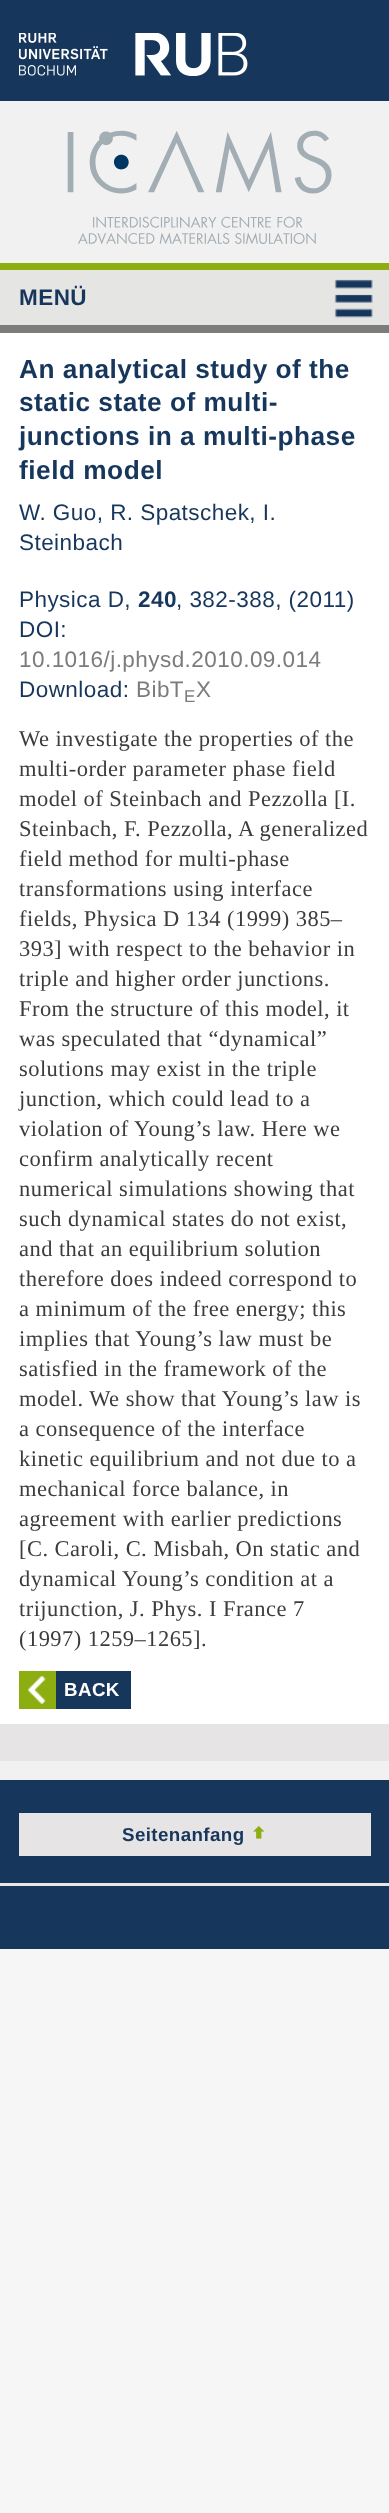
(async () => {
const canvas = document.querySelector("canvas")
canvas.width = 389
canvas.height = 2513
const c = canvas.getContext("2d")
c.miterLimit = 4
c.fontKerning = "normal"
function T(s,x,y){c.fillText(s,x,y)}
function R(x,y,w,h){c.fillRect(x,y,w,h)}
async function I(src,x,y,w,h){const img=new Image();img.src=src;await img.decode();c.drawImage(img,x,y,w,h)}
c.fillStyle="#f6f6f6"
R(0,0,389,2513)
c.fillStyle="#17365c"
R(0,0,389,101)
await I("1.png",19,33,229,43)
c.fillStyle="#f2f1f1"
R(0,101,389,1679)
await I("2.png",67,130,265,115)
c.fillStyle="#e5e5e4"
R(0,270,389,55)
c.fillStyle="#8dae10"
R(0,263,389,7)
c.fillStyle="#7c7c7b"
R(0,325,389,8)
c.letterSpacing="0.45px"
c.font="bold 22.5px Liberation Sans"
c.fillStyle="#17365c"
T("MENÜ",19,305)
await I("3.png",334,279,39,39)
c.fillStyle="#fff"
R(0,333,389,1391)
c.letterSpacing="0.5px"
c.font="bold 26.25px Liberation Sans"
c.fillStyle="#17365c"
T("An analytical study of the",19,378)
T("static state of multi-",19,411)
T("junctions in a multi-phase",19,445)
T("field model",19,479)
c.letterSpacing="0.45px"
c.font="22.5px Liberation Sans"
T("W. Guo, R. Spatschek, I.",19,520)
T("Steinbach",19,550)
T("Physica D,",19,607)
c.font="bold 22.5px Liberation Sans"
T("240",138,607)
c.font="22.5px Liberation Sans"
T(", 382-388, (2011)",176,607)
T("DOI:",19,637)
c.fillStyle="#7c7c7b"
T("10.1016/j.physd.2010.09.014",19,667)
c.fillStyle="#17365c"
T("Download:",19,697)
c.fillStyle="#7c7c7b"
T("BibT",136,697)
c.font="17px Liberation Sans"
T("E",184,702)
c.font="22.5px Liberation Sans"
T("X",196,697)
c.font="22.5px Liberation Serif"
c.fillStyle="#3c3c3b"
T("We investigate the properties of the",19,746)
T("multi-order parameter phase field",19,776)
T("model of Steinbach and Pezzolla [I.",19,806)
T("Steinbach, F. Pezzolla, A generalized",19,836)
T("field method for multi-phase",19,866)
T("transformations using interface",19,896)
T("fields, Physica D 134 (1999) 385–",19,926)
T("393] with respect to the behavior in",19,956)
T("triple and higher order junctions.",19,986)
T("From the structure of this model, it",19,1016)
T("was speculated that “dynamical”",19,1046)
T("solutions may exist in the triple",19,1076)
T("junction, which could lead to a",19,1106)
T("violation of Young’s law. Here we",19,1136)
T("confirm analytically recent",19,1166)
T("numerical simulations showing that",19,1196)
T("such dynamical states do not exist,",19,1226)
T("and that an equilibrium solution",19,1256)
T("therefore does indeed correspond to",19,1286)
T("a minimum of the free energy; this",19,1316)
T("implies that Young’s law must be",19,1346)
T("satisfied in the framework of the",19,1376)
T("model. We show that Young’s law is",19,1406)
T("a consequence of the interface",19,1436)
T("kinetic equilibrium and not due to a",19,1466)
T("mechanical force balance, in",19,1496)
T("agreement with earlier predictions",19,1526)
T("[C. Caroli, C. Misbah, On static and",19,1556)
T("dynamical Young’s condition at a",19,1586)
T("trijunction, J. Phys. I France 7",19,1616)
T("(1997) 1259–1265].",19,1646)
c.fillStyle="#8dae10"
R(19,1671,37,38)
await I("4.png",28,1676,18,28)
c.fillStyle="#17365c"
R(56,1671,75,38)
c.letterSpacing="0.4px"
c.font="bold 18.75px Liberation Sans"
c.fillStyle="#fff"
T("BACK",64,1696)
c.fillStyle="#e6e4e4"
R(0,1724,389,37)
c.fillStyle="#17365c"
R(0,1780,389,169)
c.fillStyle="#e6e4e4"
R(19,1813,352,43)
c.fillStyle="#17365c"
T("Seitenanfang",122,1841)
await I("5.png",253,1826,12,13)
c.fillStyle="#e7e7e7"
R(0,1883,389,3)
})()
